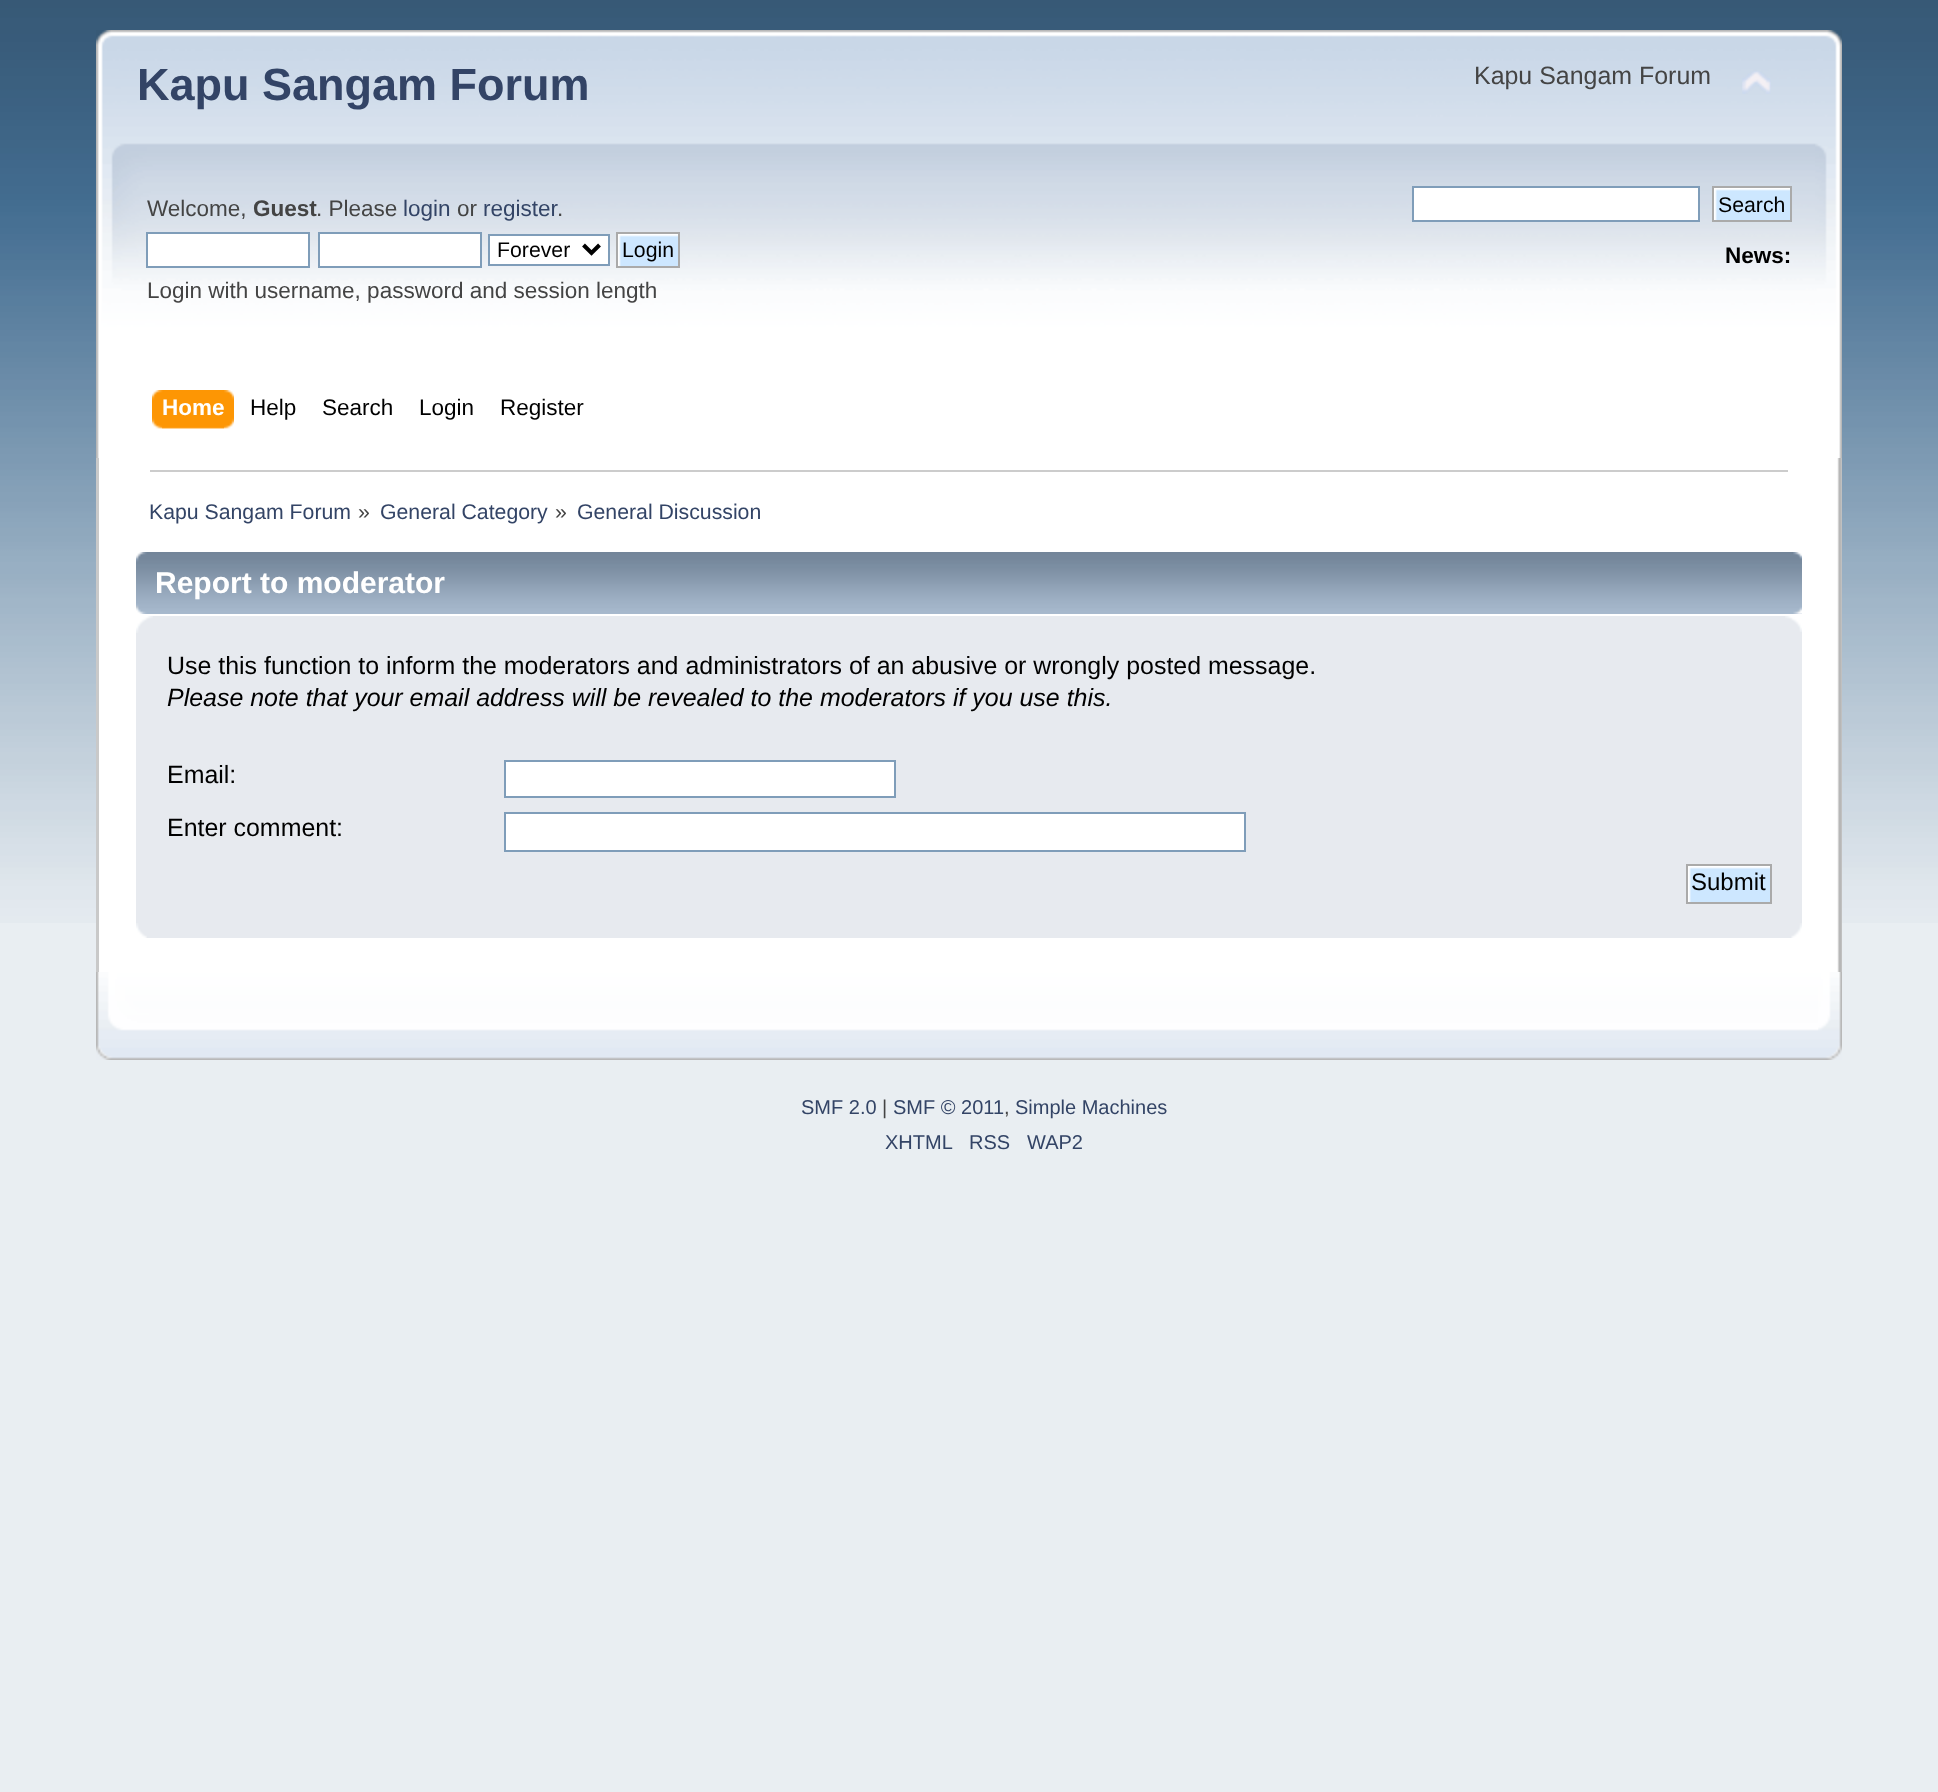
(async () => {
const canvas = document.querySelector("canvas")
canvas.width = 1938
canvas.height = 1792
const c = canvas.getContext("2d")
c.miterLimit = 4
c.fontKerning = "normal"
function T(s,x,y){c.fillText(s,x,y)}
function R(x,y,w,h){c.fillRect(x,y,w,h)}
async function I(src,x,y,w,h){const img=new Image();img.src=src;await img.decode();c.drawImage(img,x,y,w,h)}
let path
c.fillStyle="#e9eef2"
R(0,0,1938,1792)
await I("1.png",0,0,1938,923)
await I("2.png",96,30,1719,428)
await I("3.png",1815,30,27,428)
c.font="bold 45px Liberation Sans"
c.fillStyle="#346"
T("Kapu Sangam Forum",137,100)
c.font="24.95px Liberation Sans"
c.fillStyle="#444"
T("Kapu Sangam Forum",1474,84)
await I("4.png",1742,71,29,23)
c.font="22.5px Liberation Sans"
T("Welcome,",147,216)
c.font="bold 22.5px Liberation Sans"
T("Guest",253,216)
c.font="22.5px Liberation Sans"
T(". Please",316,216)
c.fillStyle="#346"
T("login",403,216)
c.fillStyle="#444"
T("or",457,216)
c.fillStyle="#346"
T("register",483,216)
c.fillStyle="#444"
T(".",557,216)
c.fillStyle="#fff"
c.beginPath()
c.rect(147,233,162,34)
c.fill()
c.strokeStyle="#7f9db9"
c.lineWidth=2
c.stroke()
c.beginPath()
c.rect(319,233,162,34)
c.fill()
c.stroke()
c.beginPath()
c.rect(489,235,120,30)
c.fill()
c.stroke()
path = new Path2D("M583.5 245l8 8l8-8")
c.strokeStyle="#000"
c.lineWidth=4
c.stroke(path)
c.font="21.25px Liberation Sans"
c.fillStyle="#000"
T("Forever",497,257)
await I("5.png",618,234,60,32)
c.strokeStyle="#aaa"
c.lineWidth=2
c.strokeRect(617,233,62,34)
T("Login",622,257)
c.font="22.5px Liberation Sans"
c.fillStyle="#444"
T("Login with username, password and session length",147,298)
c.fillStyle="#fff"
c.beginPath()
c.rect(1413,187,286,34)
c.fill()
c.strokeStyle="#7f9db9"
c.stroke()
await I("6.png",1714,188,76,32)
c.strokeStyle="#aaa"
c.strokeRect(1713,187,78,34)
c.font="21.25px Liberation Sans"
c.fillStyle="#000"
T("Search",1718,212)
c.font="bold 22.5px Liberation Sans"
T("News:",1725,263)
await I("7.png",162,390,72,39)
await I("8.png",152,390,72,39)
c.fillStyle="#fff"
T("Home",162,415)
c.font="22.5px Liberation Sans"
c.fillStyle="#000"
T("Help",250,415)
T("Search",322,415)
T("Login",419,415)
T("Register",500,415)
c.fillStyle="#fff"
R(99,458,1738,514)
c.fillStyle="#c9c9c9"
R(96,458,3,514)
await I("9.png",1837,458,5,514)
c.fillStyle="#ccc"
R(150,470,1638,2)
c.font="21.25px Liberation Sans"
c.fillStyle="#346"
T("Kapu Sangam Forum",149,519)
c.fillStyle="#444"
T("»",358,519)
c.fillStyle="#346"
T("General Category",380,519)
c.fillStyle="#444"
T("»",555,519)
c.fillStyle="#346"
T("General Discussion",577,519)
await I("10.png",136,552,1666,62)
await I("11.png",1793,552,9,62)
c.font="bold 30px Liberation Sans"
c.fillStyle="#fff"
T("Report to moderator",155,593)
c.fillStyle="#e7eaef"
R(136,616,1666,322)
await I("12.png",136,616,17,17)
await I("13.png",1785,616,17,16)
c.font="24.95px Liberation Sans"
c.fillStyle="#000"
T("Use this function to inform the moderators and administrators of an abusive or wrongly posted message.",167,674)
c.font="italic 24.95px Liberation Sans"
T("Please note that your email address will be revealed to the moderators if you use this.",167,706)
c.font="24.95px Liberation Sans"
T("Email:",167,783)
c.fillStyle="#fff"
c.beginPath()
c.rect(505,761,390,36)
c.fill()
c.strokeStyle="#7f9db9"
c.stroke()
c.fillStyle="#000"
T("Enter comment:",167,836)
c.fillStyle="#fff"
c.beginPath()
c.rect(505,813,740,38)
c.fill()
c.stroke()
await I("14.png",1688,866,82,36)
c.strokeStyle="#aaa"
c.strokeRect(1687,865,84,38)
c.font="24px Liberation Sans"
c.fillStyle="#000"
T("Submit",1691,890)
await I("15.png",136,923,11,15)
await I("16.png",1791,923,11,15)
await I("17.png",96,972,1722,88)
await I("18.png",1818,972,24,88)
c.font="20px Liberation Sans"
c.fillStyle="#346"
T("SMF 2.0",801,1114)
c.fillStyle="#444"
T("|",882,1114)
c.fillStyle="#346"
T("SMF © 2011",893,1114)
c.fillStyle="#444"
T(",",1004,1114)
c.fillStyle="#346"
T("Simple Machines",1015,1114)
T("XHTML",885,1149)
T("RSS",969,1149)
T("WAP2",1027,1149)
})()
